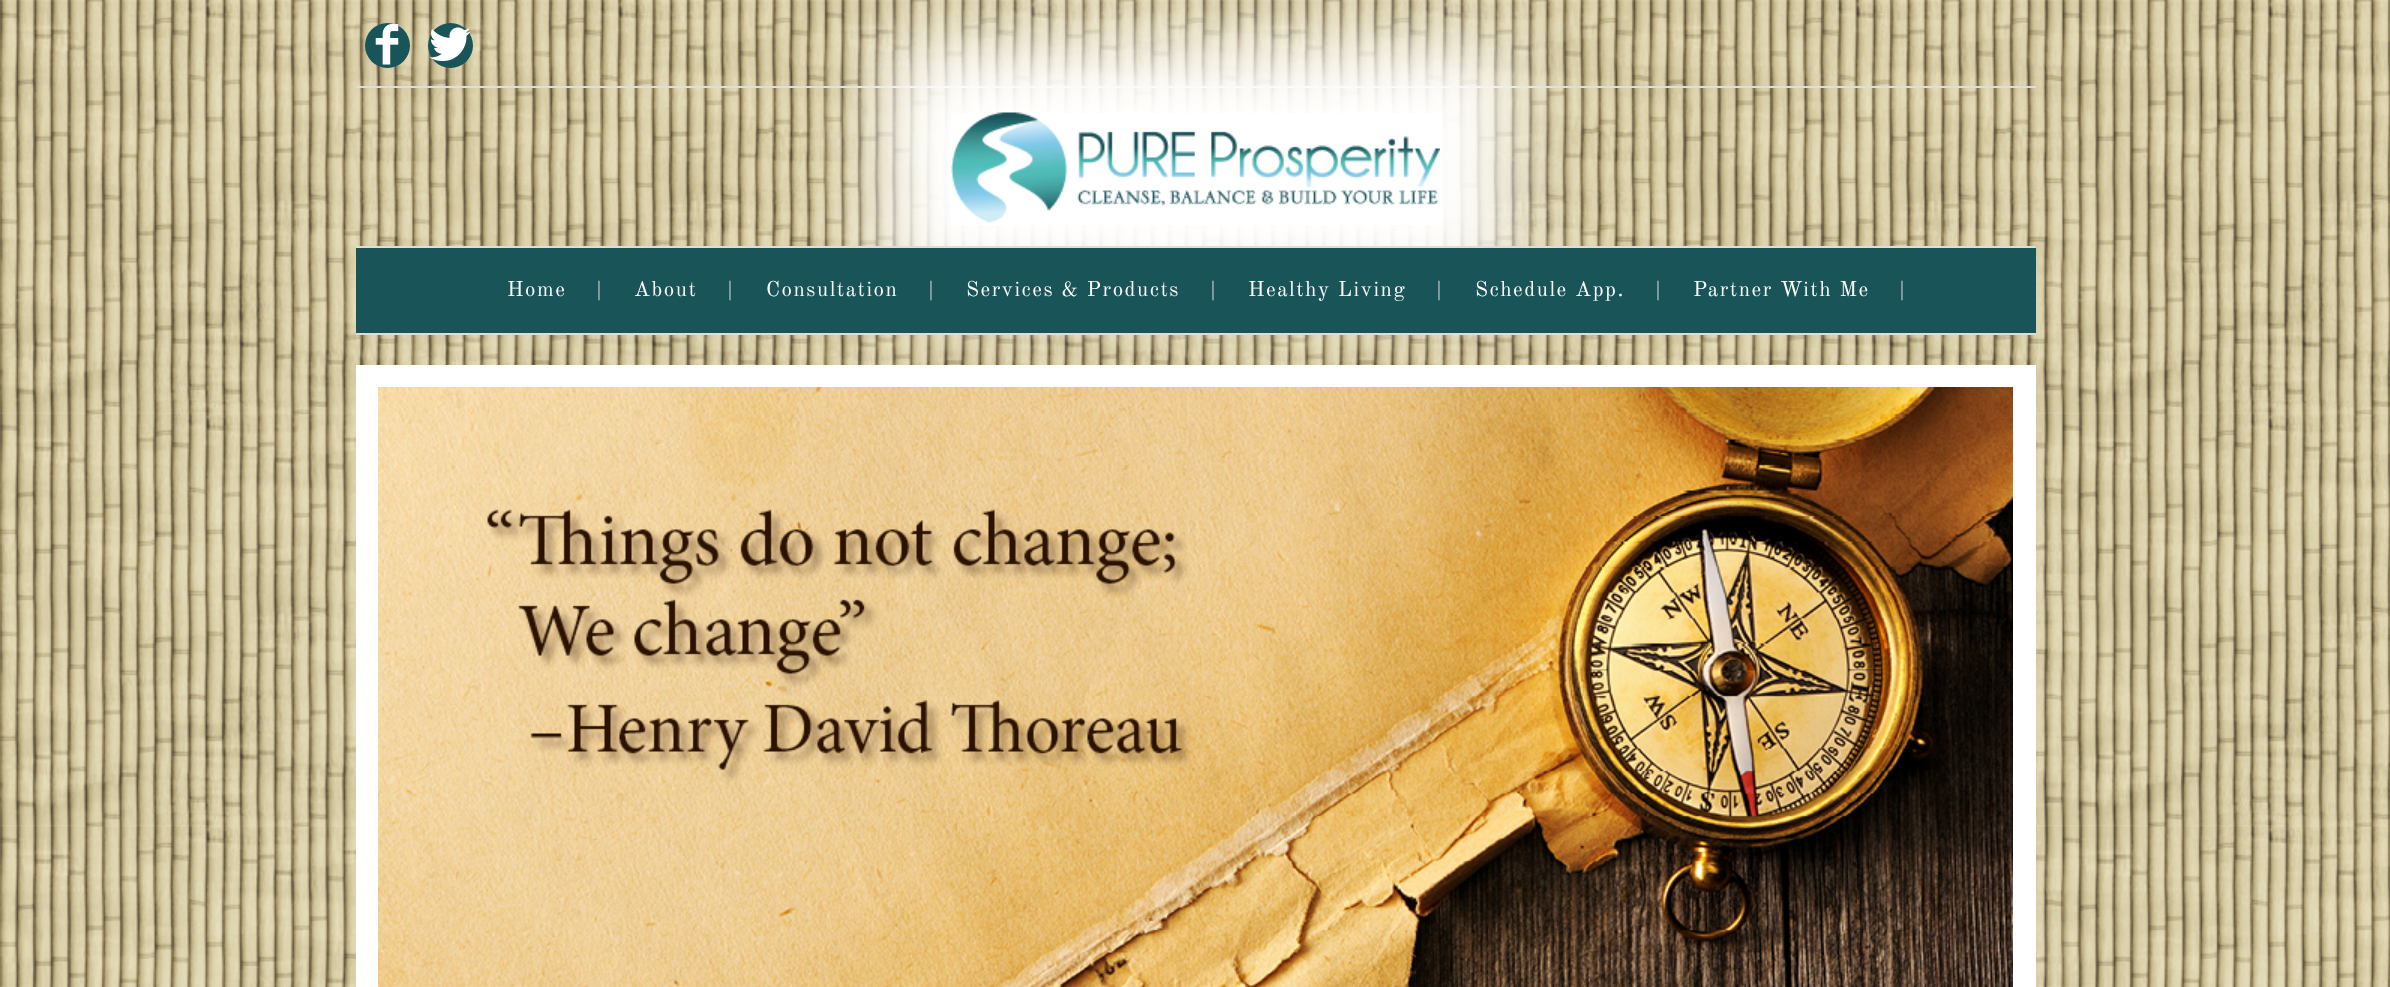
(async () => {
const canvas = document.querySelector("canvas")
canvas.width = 2390
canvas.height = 987
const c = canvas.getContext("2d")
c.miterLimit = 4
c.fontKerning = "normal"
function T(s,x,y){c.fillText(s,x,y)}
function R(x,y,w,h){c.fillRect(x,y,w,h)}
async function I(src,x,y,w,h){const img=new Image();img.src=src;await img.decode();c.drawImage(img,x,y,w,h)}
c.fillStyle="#fff"
R(0,0,2390,987)
await I("1.png",0,0,2390,987)
c.fillStyle="#ddd"
R(356,86,1680,2)
c.fillStyle="#fff"
c.filter="blur(37.5px)"
c.beginPath()
c.rect(884,45,625,248)
c.fill()
c.filter="none"
R(951,113,491,112)
await I("2.png",951,112,489,111)
c.fillStyle="#195459"
c.beginPath()
c.arc(387.5,45.5,22.5,0,7)
c.fill()
await I("3.png",375,24,24,41)
c.beginPath()
c.arc(450.5,45.5,22.5,0,7)
c.fill()
await I("4.png",429,27,42,35)
c.fillStyle="#ddd"
R(356,246,1680,2)
R(356,333,1680,2)
c.fillStyle="#195459"
R(356,248,1680,85)
c.letterSpacing="1.5px"
c.font="21px Old Standard TT"
c.fillStyle="#fff"
T("Home",507,296)
c.fillStyle="#ddd"
T("|",596,296)
c.fillStyle="#fff"
T("About",634,296)
c.fillStyle="#ddd"
T("|",727,296)
c.fillStyle="#fff"
T("Consultation",766,296)
c.fillStyle="#ddd"
T("|",928,296)
c.fillStyle="#fff"
T("Services & Products",966,296)
c.fillStyle="#ddd"
T("|",1210,296)
c.fillStyle="#fff"
T("Healthy Living",1248,296)
c.fillStyle="#ddd"
T("|",1436,296)
c.fillStyle="#fff"
T("Schedule App.",1475,296)
c.fillStyle="#ddd"
T("|",1655,296)
c.fillStyle="#fff"
T("Partner With Me",1693,296)
c.fillStyle="#ddd"
T("|",1899,296)
c.fillStyle="#fff"
R(356,365,1680,622)
await I("5.png",378,387,1635,600)
})()
